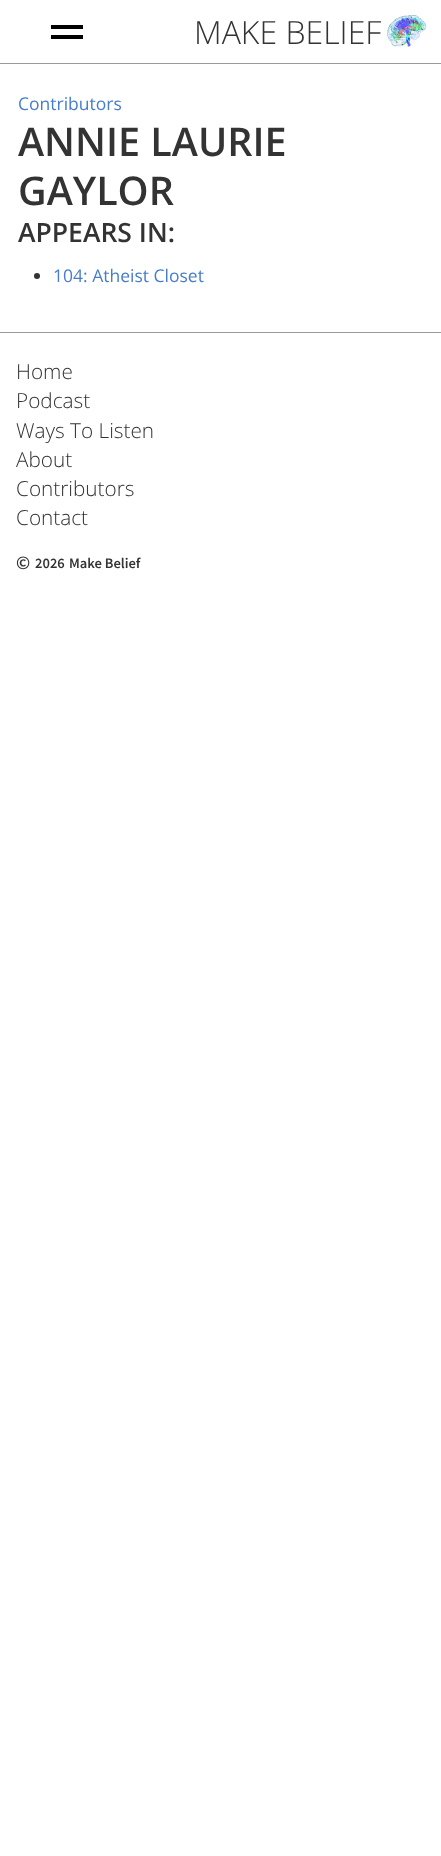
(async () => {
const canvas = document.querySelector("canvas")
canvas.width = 441
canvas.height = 1856
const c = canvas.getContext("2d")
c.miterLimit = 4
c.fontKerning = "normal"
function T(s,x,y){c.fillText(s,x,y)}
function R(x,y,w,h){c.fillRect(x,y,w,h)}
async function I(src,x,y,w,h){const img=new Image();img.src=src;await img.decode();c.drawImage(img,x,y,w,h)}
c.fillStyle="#fff"
R(0,0,441,1856)
c.fillStyle="#999"
R(0,63,441,1)
c.fillStyle="#000"
R(51,25,32,4)
R(51,35,32,4)
c.font="300 32px Open Sans"
c.fillStyle="#333"
T("MAKE BELIEF",194,44)
await I("1.png",386,15,41,33)
c.font="17.5px Open Sans"
c.fillStyle="#477dca"
T("Contributors",18,110)
c.font="600 39.5px Open Sans"
c.fillStyle="#333"
T("ANNIE LAURIE",18,156)
T("GAYLOR",18,205)
c.font="600 26.5px Open Sans"
T("APPEARS IN:",18,242)
c.beginPath()
c.arc(37,276,3,0,7)
c.fill()
c.font="17.5px Open Sans"
c.fillStyle="#477dca"
T("104: Atheist Closet",53,282)
c.fillStyle="#999"
R(0,332,441,1)
c.font="300 20.75px Open Sans"
c.fillStyle="#333"
T("Home",16,379)
T("Podcast",16,408)
T("Ways To Listen",16,438)
T("About",16,467)
T("Contributors",16,496)
T("Contact",16,525)
c.font="600 19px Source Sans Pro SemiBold"
T("©",16,569)
c.font="600 14.5px Source Sans Pro SemiBold"
T("2026",35,568)
T("Make Belief",69,568)
})()
